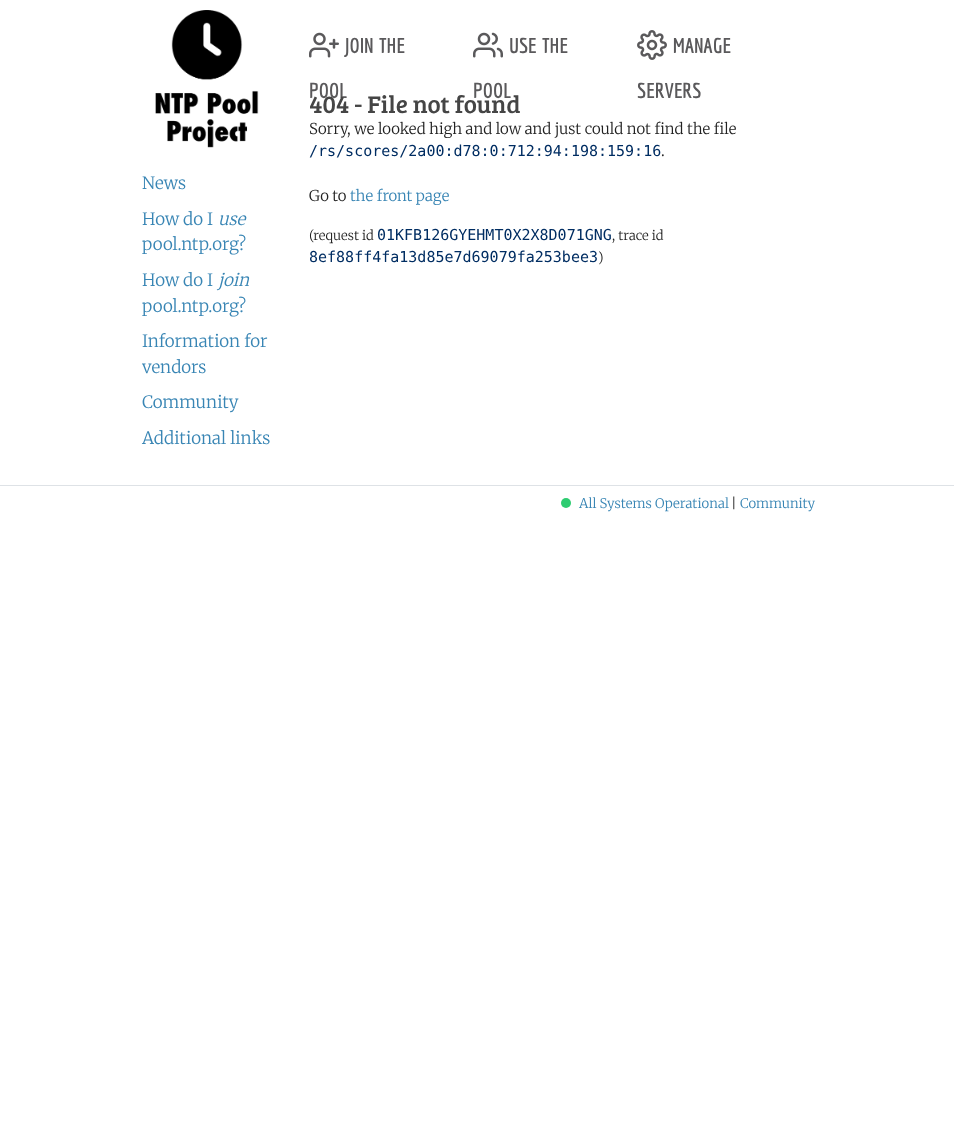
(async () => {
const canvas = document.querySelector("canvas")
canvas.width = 954
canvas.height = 1139
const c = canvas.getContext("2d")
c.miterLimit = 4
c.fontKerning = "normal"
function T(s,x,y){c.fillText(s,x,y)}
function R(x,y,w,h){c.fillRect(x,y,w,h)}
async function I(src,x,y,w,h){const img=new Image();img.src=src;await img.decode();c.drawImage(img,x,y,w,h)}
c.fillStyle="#fff"
R(0,0,954,1139)
await I("1.png",309,32,30,26)
c.font="bold 21px Economica"
c.fillStyle="#5a595b"
T("JOIN",345,53)
T("THE",379,53)
T("POOL",309,98)
await I("2.png",473,32,30,26)
T("USE",509,53)
T("THE",542,53)
T("POOL",473,98)
await I("3.png",637,30,30,30)
T("MANAGE",673,53)
T("SERVERS",637,98)
c.font="25px Bree Serif"
c.fillStyle="#454545"
T("404 - File not found",309,113)
c.font="300 15px Merriweather"
c.fillStyle="#222"
T("Sorry, we looked high and low and just could not find the file",309,134)
c.font="15px DejaVu Sans Mono"
c.fillStyle="#002d62"
T("/rs/scores/2a00:d78:0:712:94:198:159:16",309,156)
c.font="300 15px Merriweather"
c.fillStyle="#222"
T(".",661,156)
T("Go to",309,201)
c.fillStyle="#3885b4"
T("the front page",350,201)
c.font="300 13px Merriweather"
c.fillStyle="#222"
T("(request id",309,240)
c.font="15px DejaVu Sans Mono"
c.fillStyle="#002d62"
T("01KFB126GYEHMT0X2X8D071GNG",377,240)
c.font="300 13px Merriweather"
c.fillStyle="#222"
T(", trace id",612,240)
c.font="15px DejaVu Sans Mono"
c.fillStyle="#002d62"
T("8ef88ff4fa13d85e7d69079fa253bee3",309,262)
c.font="300 13px Merriweather"
c.fillStyle="#222"
T(")",598,262)
await I("4.png",155,10,104,138)
c.font="300 17px Merriweather"
c.fillStyle="#3885b4"
T("News",142,189)
T("How do I",142,225)
c.font="italic 300 17px Merriweather"
T("use",218,225)
c.font="300 17px Merriweather"
T("pool.ntp.org?",142,250)
T("How do I",142,286)
c.font="italic 300 17px Merriweather"
T("join",218,286)
c.font="300 17px Merriweather"
T("pool.ntp.org?",142,312)
T("Information for",142,347)
T("vendors",142,373)
T("Community",142,408)
T("Additional links",142,444)
c.fillStyle="#dee2e6"
R(0,485,954,1)
c.fillStyle="#2ecc71"
c.beginPath()
c.arc(566,503,5,0,7)
c.fill()
c.font="300 13.25px Merriweather"
c.fillStyle="#3885b4"
T("All Systems Operational",579,508)
c.fillStyle="#222"
T("|",731,508)
c.fillStyle="#3885b4"
T("Community",740,508)
})()
